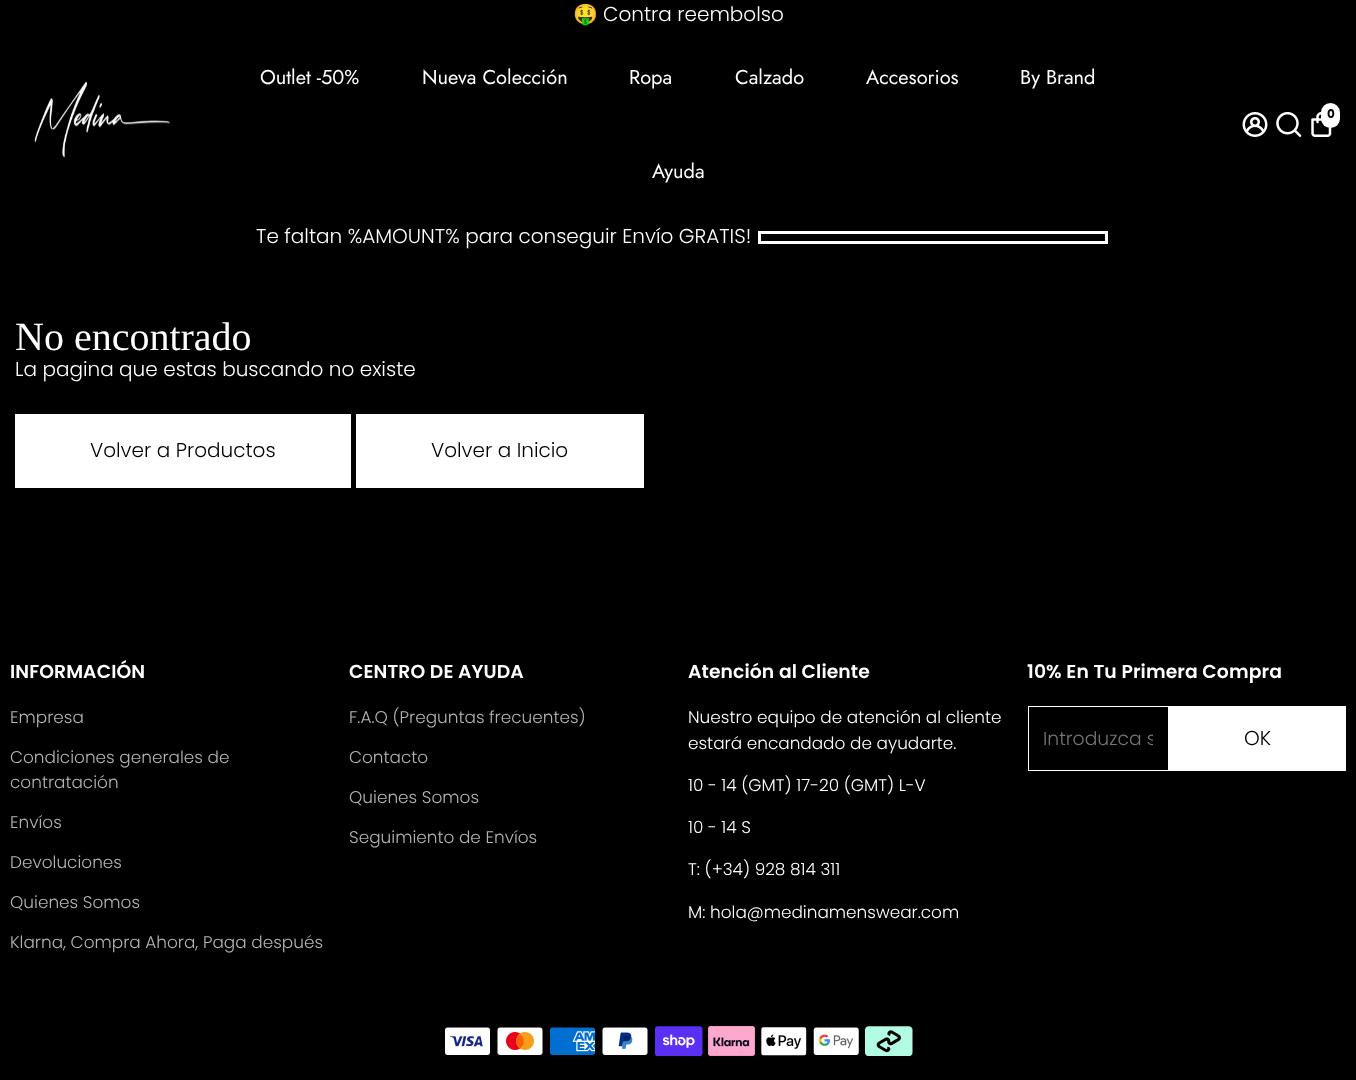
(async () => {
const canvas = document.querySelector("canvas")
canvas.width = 1356
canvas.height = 1080
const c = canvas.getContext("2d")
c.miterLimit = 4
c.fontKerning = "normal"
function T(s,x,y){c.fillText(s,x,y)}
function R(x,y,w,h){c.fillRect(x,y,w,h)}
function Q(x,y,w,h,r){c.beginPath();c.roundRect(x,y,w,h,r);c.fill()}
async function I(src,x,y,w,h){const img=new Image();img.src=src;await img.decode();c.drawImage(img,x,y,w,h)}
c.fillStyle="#000"
R(0,0,1356,1080)
c.font="20px Noto Color Emoji"
c.fillStyle="#fff"
T("🤑",573,21)
c.font="300 20px Poppins"
T("Contra reembolso",603,21)
await I("1.png",34,81,136,77)
c.font="20px Jost"
T("Outlet -50%",260,84)
T("Nueva Colección",422,84)
T("Ropa",629,84)
T("Calzado",735,84)
T("Accesorios",866,84)
T("By Brand",1020,84)
T("Ayuda",652,178)
await I("2.png",1242,112,26,25)
await I("3.png",1276,112,26,25)
await I("4.png",1311,112,21,25)
Q(1321,103,19,25,9.5)
c.font="bold 12px Poppins"
c.fillStyle="#000"
T("0",1327,118)
c.font="300 20px Poppins"
c.fillStyle="#fff"
T("Te faltan %AMOUNT% para conseguir Envío GRATIS!",256,243)
c.strokeStyle="#fff"
c.lineWidth=3
c.strokeRect(759.5,232.5,347,10)
c.font="40px Liberation Serif"
T("No encontrado",15,350)
c.font="300 20px Poppins"
T("La pagina que estas buscando no existe",15,376)
R(15,414,336,74)
c.fillStyle="#000"
T("Volver a Productos",90,457)
c.fillStyle="#fff"
R(356,414,288,74)
c.fillStyle="#000"
T("Volver a Inicio",431,457)
c.letterSpacing="0.1px"
c.font="600 18.75px Poppins"
c.fillStyle="#fff"
T("INFORMACIÓN",10,678)
c.letterSpacing="0px"
c.font="300 16.9px Poppins"
c.fillStyle="#b3b3b3"
T("Empresa",10,723)
T("Condiciones generales de",10,763)
T("contratación",10,788)
T("Envíos",10,828)
T("Devoluciones",10,868)
T("Quienes Somos",10,908)
T("Klarna, Compra Ahora, Paga después",10,948)
c.letterSpacing="0.1px"
c.font="600 18.75px Poppins"
c.fillStyle="#fff"
T("CENTRO DE AYUDA",349,678)
c.letterSpacing="0px"
c.font="300 16.9px Poppins"
c.fillStyle="#b3b3b3"
T("F.A.Q (Preguntas frecuentes)",349,723)
T("Contacto",349,763)
T("Quienes Somos",349,803)
T("Seguimiento de Envíos",349,843)
c.letterSpacing="0.1px"
c.font="600 18.75px Poppins"
c.fillStyle="#fff"
T("Atención al Cliente",688,678)
c.letterSpacing="0px"
c.font="300 16.9px Poppins"
T("Nuestro equipo de atención al cliente",688,723)
T("estará encandado de ayudarte.",688,749)
T("10 - 14 (GMT) 17-20 (GMT) L-V",688,791)
T("10 - 14 S",688,833)
T("T: (+34) 928 814 311",688,875)
T("M: hola@medinamenswear.com",688,918)
c.letterSpacing="0.1px"
c.font="600 18.75px Poppins"
T("10% En Tu Primera Compra",1027,678)
c.lineWidth=1
c.strokeRect(1028.5,706.5,140,64)
c.save()
c.beginPath()
c.rect(1044,724,109,29)
c.clip()
c.letterSpacing="0px"
c.font="300 18.75px Poppins"
c.fillStyle="#757575"
T("Introduzca s",1043,745)
c.restore()
R(1169,706,177,65)
c.letterSpacing="0px"
c.font="300 20px Poppins"
c.fillStyle="#000"
T("OK",1244,745)
await I("5.png",445,1027,45,28)
await I("6.png",497,1027,46,28)
await I("7.png",550,1027,45,28)
await I("8.png",602,1027,46,28)
await I("9.png",655,1026,48,30)
await I("10.png",708,1026,47,30)
await I("11.png",761,1027,46,29)
await I("12.png",813,1027,46,28)
await I("13.png",865,1026,48,30)
})()
